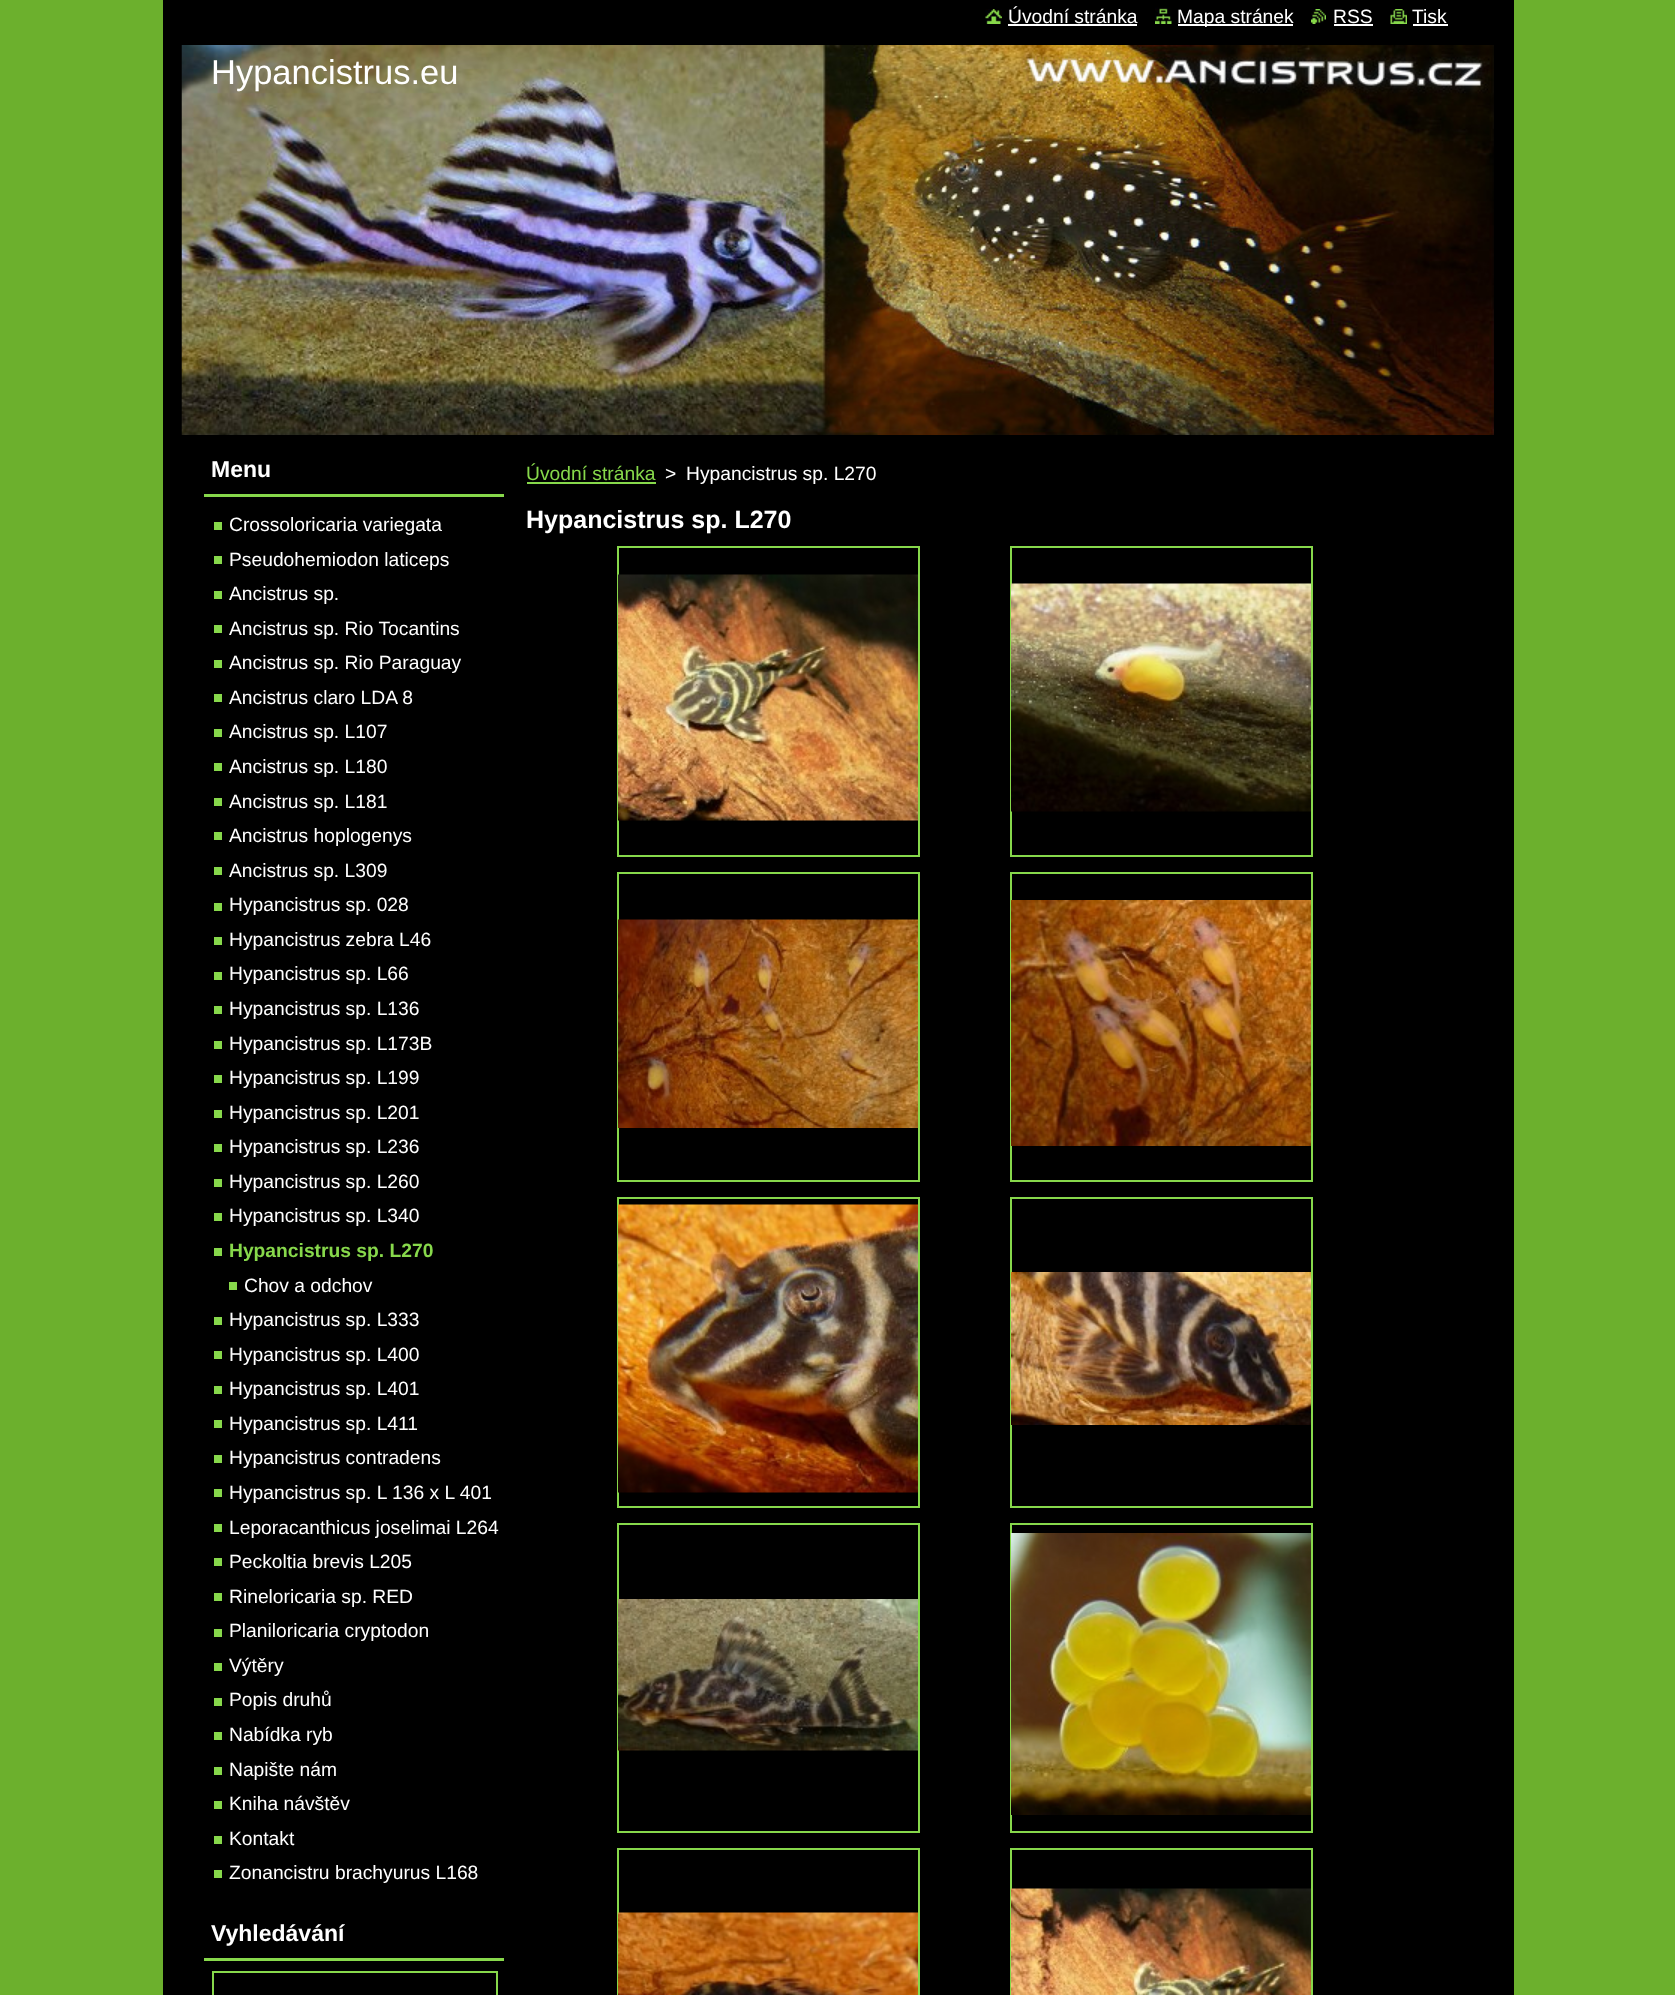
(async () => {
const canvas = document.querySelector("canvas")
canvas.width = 1675
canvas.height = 1995
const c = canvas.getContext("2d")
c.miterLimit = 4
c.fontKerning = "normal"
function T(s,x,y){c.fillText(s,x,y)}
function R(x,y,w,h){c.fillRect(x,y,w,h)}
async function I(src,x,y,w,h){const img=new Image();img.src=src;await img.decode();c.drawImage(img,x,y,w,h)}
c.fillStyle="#6cb02d"
R(0,0,1675,1995)
c.fillStyle="#000"
R(163,0,1351,1995)
await I("1.png",985,9,17,15)
c.font="19.25px Liberation Sans"
c.fillStyle="#fff"
T("Úvodní stránka",1008,23)
R(1008,24,129,2)
await I("2.png",1155,7,17,17)
R(1178,24,115,2)
T("Mapa stránek",1177,23)
await I("3.png",1311,9,15,15)
T("RSS",1333,23)
R(1334,24,39,2)
await I("4.png",1390,9,17,15)
T("Tisk",1412,23)
R(1413,24,35,2)
await I("5.png",181,45,1313,390)
c.font="34.5px Liberation Sans"
T("Hypancistrus.eu",211,84)
c.fillStyle="#87d84b"
R(204,494,300,3)
c.font="bold 23px Liberation Sans"
c.fillStyle="#fff"
T("Menu",211,477)
c.font="19.25px Liberation Sans"
T("Crossoloricaria variegata",229,531)
c.fillStyle="#87d84b"
R(214,522,8,8)
c.fillStyle="#fff"
T("Pseudohemiodon laticeps",229,566)
c.fillStyle="#87d84b"
R(214,556,8,8)
c.fillStyle="#fff"
T("Ancistrus sp.",229,600)
c.fillStyle="#87d84b"
R(214,591,8,8)
c.fillStyle="#fff"
T("Ancistrus sp. Rio Tocantins",229,635)
c.fillStyle="#87d84b"
R(214,625,8,8)
c.fillStyle="#fff"
T("Ancistrus sp. Rio Paraguay",229,669)
c.fillStyle="#87d84b"
R(214,660,8,8)
c.fillStyle="#fff"
T("Ancistrus claro LDA 8",229,704)
c.fillStyle="#87d84b"
R(214,694,8,8)
c.fillStyle="#fff"
T("Ancistrus sp. L107",229,738)
c.fillStyle="#87d84b"
R(214,729,8,8)
c.fillStyle="#fff"
T("Ancistrus sp. L180",229,773)
c.fillStyle="#87d84b"
R(214,763,8,8)
c.fillStyle="#fff"
T("Ancistrus sp. L181",229,808)
c.fillStyle="#87d84b"
R(214,798,8,8)
c.fillStyle="#fff"
T("Ancistrus hoplogenys",229,842)
c.fillStyle="#87d84b"
R(214,832,8,8)
c.fillStyle="#fff"
T("Ancistrus sp. L309",229,877)
c.fillStyle="#87d84b"
R(214,867,8,8)
c.fillStyle="#fff"
T("Hypancistrus sp. 028",229,911)
c.fillStyle="#87d84b"
R(214,903,8,8)
c.fillStyle="#fff"
T("Hypancistrus zebra L46",229,946)
c.fillStyle="#87d84b"
R(214,937,8,8)
c.fillStyle="#fff"
T("Hypancistrus sp. L66",229,980)
c.fillStyle="#87d84b"
R(214,972,8,8)
c.fillStyle="#fff"
T("Hypancistrus sp. L136",229,1015)
c.fillStyle="#87d84b"
R(214,1006,8,8)
c.fillStyle="#fff"
T("Hypancistrus sp. L173B",229,1050)
c.fillStyle="#87d84b"
R(214,1041,8,8)
c.fillStyle="#fff"
T("Hypancistrus sp. L199",229,1084)
c.fillStyle="#87d84b"
R(214,1075,8,8)
c.fillStyle="#fff"
T("Hypancistrus sp. L201",229,1119)
c.fillStyle="#87d84b"
R(214,1110,8,8)
c.fillStyle="#fff"
T("Hypancistrus sp. L236",229,1153)
c.fillStyle="#87d84b"
R(214,1144,8,8)
c.fillStyle="#fff"
T("Hypancistrus sp. L260",229,1188)
c.fillStyle="#87d84b"
R(214,1179,8,8)
c.fillStyle="#fff"
T("Hypancistrus sp. L340",229,1222)
c.fillStyle="#87d84b"
R(214,1213,8,8)
c.font="bold 19.25px Liberation Sans"
T("Hypancistrus sp. L270",229,1257)
R(214,1248,8,8)
c.font="19.25px Liberation Sans"
c.fillStyle="#fff"
T("Chov a odchov",244,1292)
c.fillStyle="#87d84b"
R(229,1282,8,8)
c.fillStyle="#fff"
T("Hypancistrus sp. L333",229,1326)
c.fillStyle="#87d84b"
R(214,1317,8,8)
c.fillStyle="#fff"
T("Hypancistrus sp. L400",229,1361)
c.fillStyle="#87d84b"
R(214,1351,8,8)
c.fillStyle="#fff"
T("Hypancistrus sp. L401",229,1395)
c.fillStyle="#87d84b"
R(214,1386,8,8)
c.fillStyle="#fff"
T("Hypancistrus sp. L411",229,1430)
c.fillStyle="#87d84b"
R(214,1420,8,8)
c.fillStyle="#fff"
T("Hypancistrus contradens",229,1464)
c.fillStyle="#87d84b"
R(214,1455,8,8)
c.fillStyle="#fff"
T("Hypancistrus sp. L 136 x L 401",229,1499)
c.fillStyle="#87d84b"
R(214,1489,8,8)
c.fillStyle="#fff"
T("Leporacanthicus joselimai L264",229,1534)
c.fillStyle="#87d84b"
R(214,1524,8,8)
c.fillStyle="#fff"
T("Peckoltia brevis L205",229,1568)
c.fillStyle="#87d84b"
R(214,1558,8,8)
c.fillStyle="#fff"
T("Rineloricaria sp. RED",229,1603)
c.fillStyle="#87d84b"
R(214,1593,8,8)
c.fillStyle="#fff"
T("Planiloricaria cryptodon",229,1637)
c.fillStyle="#87d84b"
R(214,1629,8,8)
c.fillStyle="#fff"
T("Výtěry",229,1672)
c.fillStyle="#87d84b"
R(214,1663,8,8)
c.fillStyle="#fff"
T("Popis druhů",229,1706)
c.fillStyle="#87d84b"
R(214,1698,8,8)
c.fillStyle="#fff"
T("Nabídka ryb",229,1741)
c.fillStyle="#87d84b"
R(214,1732,8,8)
c.fillStyle="#fff"
T("Napište nám",229,1776)
c.fillStyle="#87d84b"
R(214,1767,8,8)
c.fillStyle="#fff"
T("Kniha návštěv",229,1810)
c.fillStyle="#87d84b"
R(214,1801,8,8)
c.fillStyle="#fff"
T("Kontakt",229,1845)
c.fillStyle="#87d84b"
R(214,1836,8,8)
c.fillStyle="#fff"
T("Zonancistru brachyurus L168",229,1879)
c.fillStyle="#87d84b"
R(214,1870,8,8)
R(204,1958,300,3)
c.font="bold 23px Liberation Sans"
c.fillStyle="#fff"
T("Vyhledávání",211,1941)
c.strokeStyle="#87d84b"
c.lineWidth=2
c.strokeRect(213,1972,284,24)
c.font="19.25px Liberation Sans"
c.fillStyle="#87d84b"
T("Úvodní stránka",526,480)
R(527,482,129,2)
c.fillStyle="#fff"
T(">",665,480)
T("Hypancistrus sp. L270",686,480)
c.font="bold 25px Liberation Sans"
T("Hypancistrus sp. L270",526,528)
c.strokeRect(618,547,301,309)
await I("6.png",618,574,300,247)
c.strokeRect(1011,547,301,309)
await I("7.png",1011,583,300,229)
c.strokeRect(618,873,301,308)
await I("8.png",618,919,300,209)
c.strokeRect(1011,873,301,308)
await I("9.png",1011,900,300,246)
c.strokeRect(618,1198,301,309)
await I("10.png",618,1204,300,289)
c.strokeRect(1011,1198,301,309)
await I("11.png",1011,1272,300,153)
c.strokeRect(618,1524,301,308)
await I("12.png",618,1599,300,152)
c.strokeRect(1011,1524,301,308)
await I("13.png",1011,1533,300,282)
c.strokeRect(618,1849,301,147)
await I("14.png",618,1912,300,83)
c.strokeRect(1011,1849,301,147)
await I("15.png",1011,1888,300,107)
})()
